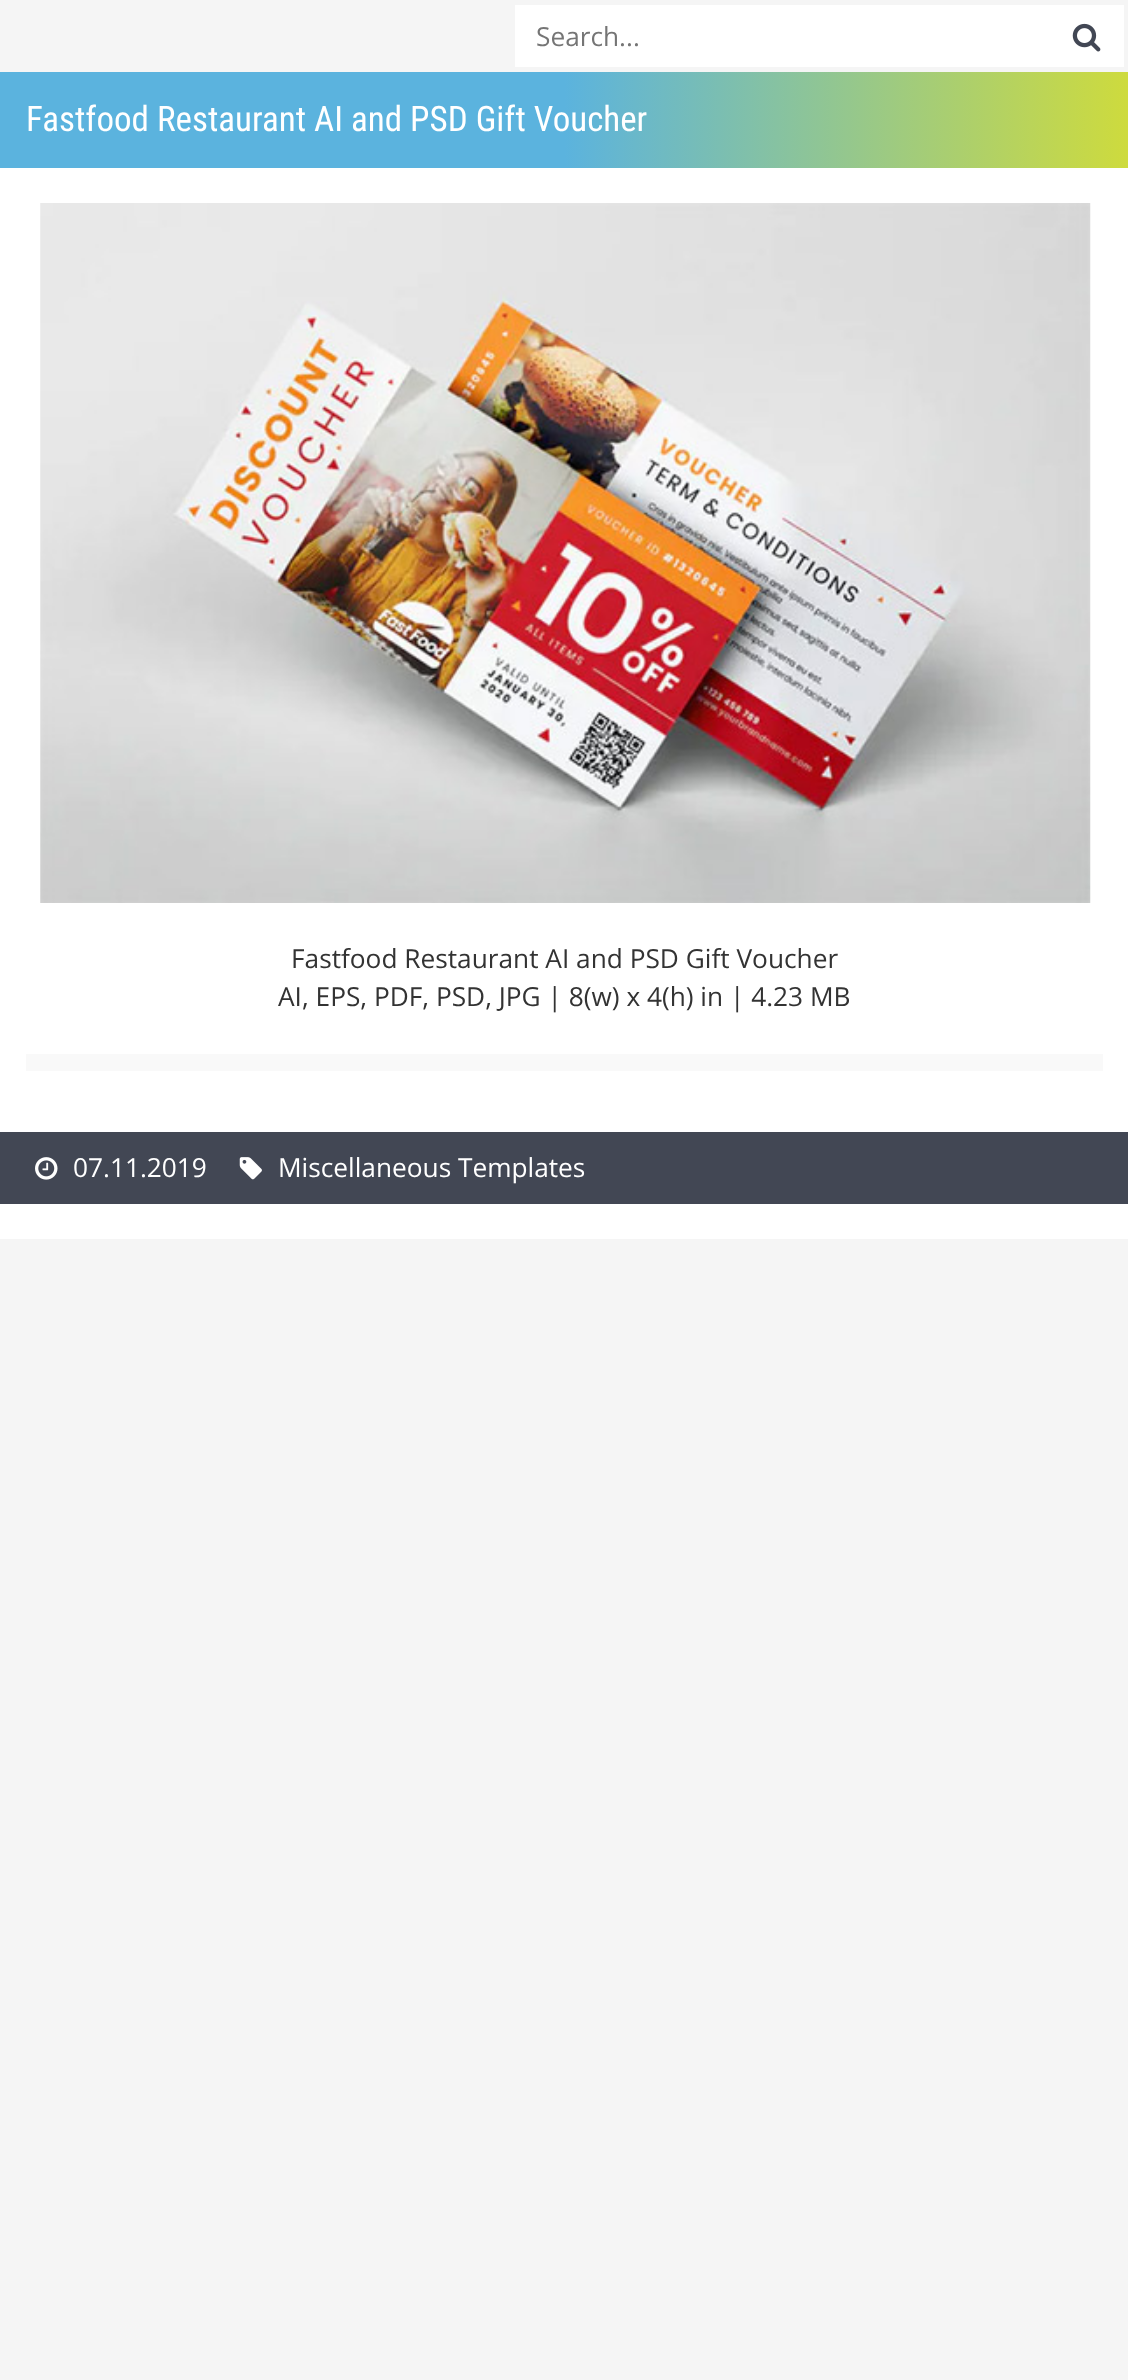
(async () => {
const canvas = document.querySelector("canvas")
canvas.width = 1128
canvas.height = 2380
const c = canvas.getContext("2d")
c.miterLimit = 4
c.fontKerning = "normal"
function T(s,x,y){c.fillText(s,x,y)}
function R(x,y,w,h){c.fillRect(x,y,w,h)}
async function I(src,x,y,w,h){const img=new Image();img.src=src;await img.decode();c.drawImage(img,x,y,w,h)}
let gradient
c.fillStyle="#f5f5f5"
R(0,0,1128,2380)
c.fillStyle="#fff"
R(515,5,609,62)
c.font="26.25px Open Sans"
c.fillStyle="#757575"
T("Search...",536,46)
await I("1.png",1072,23,29,29)
c.fillStyle="#fff"
R(0,168,1128,1071)
gradient = c.createLinearGradient(0,-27,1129,-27)
gradient.addColorStop(.5,"#5bb3de")
gradient.addColorStop(1,"#cedb3d")
c.fillStyle = gradient
R(0,72,1128,96)
c.font="35px Roboto Condensed"
c.fillStyle="#fff"
T("Fastfood Restaurant AI and PSD Gift Voucher",26,131)
await I("2.png",40,203,1051,700)
c.font="26.25px Open Sans"
c.fillStyle="#333"
T("Fastfood Restaurant AI and PSD Gift Voucher",291,968)
T("AI, EPS, PDF, PSD, JPG | 8(w) x 4(h) in | 4.23 MB",278,1006)
c.fillStyle="#f9f9f9"
R(26,1054,1077,17)
c.fillStyle="#424754"
R(0,1132,1128,72)
await I("3.png",35,1157,23,23)
c.fillStyle="#fff"
T("07.11.2019",73,1177)
await I("4.png",239,1157,23,23)
T("Miscellaneous Templates",278,1177)
})()
